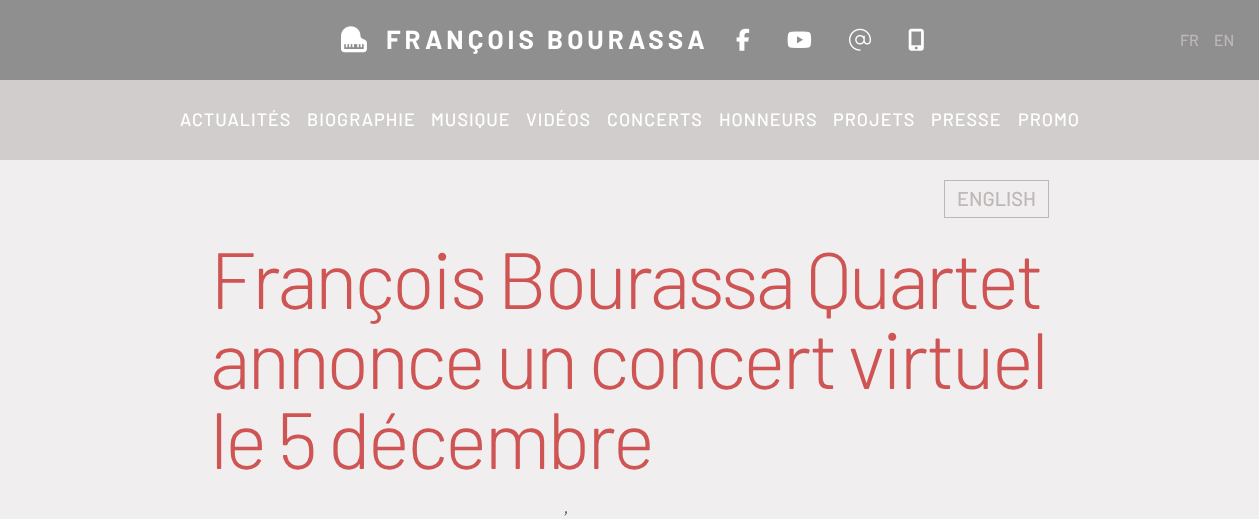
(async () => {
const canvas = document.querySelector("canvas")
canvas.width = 1259
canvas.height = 519
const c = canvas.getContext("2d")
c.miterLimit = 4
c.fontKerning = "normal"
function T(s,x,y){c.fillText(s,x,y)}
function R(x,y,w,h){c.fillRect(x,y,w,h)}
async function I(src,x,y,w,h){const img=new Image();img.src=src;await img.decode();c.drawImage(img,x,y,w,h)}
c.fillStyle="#f0eeee"
R(0,0,1259,519)
c.fillStyle="#908f8f"
R(0,0,1259,80)
await I("1.png",341,26,26,27)
c.letterSpacing="4px"
c.font="bold 26px Barlow"
c.fillStyle="#fff"
T("FRANÇOIS BOURASSA",386,49)
await I("2.png",736,28,14,23)
await I("3.png",787,31,25,17)
await I("4.png",849,28,22,23)
await I("5.png",908,28,16,23)
c.letterSpacing="0px"
c.font="500 16px Barlow"
c.fillStyle="#beb7b7"
T("FR",1180,46)
T("EN",1214,46)
c.fillStyle="#d2cdcd"
R(0,80,1259,80)
c.letterSpacing="1px"
c.font="500 18px Barlow"
c.fillStyle="#fff"
T("ACTUALITÉS",180,126)
T("BIOGRAPHIE",307,126)
T("MUSIQUE",431,126)
T("VIDÉOS",526,126)
T("CONCERTS",607,126)
T("HONNEURS",719,126)
T("PROJETS",833,126)
T("PRESSE",931,126)
T("PROMO",1018,126)
c.strokeStyle="#beb7b7"
c.strokeRect(944.5,180.5,104,37)
c.letterSpacing="0px"
c.font="500 20px Barlow"
c.fillStyle="#beb7b7"
T("ENGLISH",957,206)
c.letterSpacing="-3px"
c.font="300 79.75px Barlow"
c.fillStyle="#cf5454"
T("François Bourassa Quartet",210,309)
T("annonce un concert virtuel",210,389)
T("le 5 décembre",210,469)
c.letterSpacing="0px"
c.font="20px Crimson Text"
c.fillStyle="#555"
T("’",564,525)
})()
